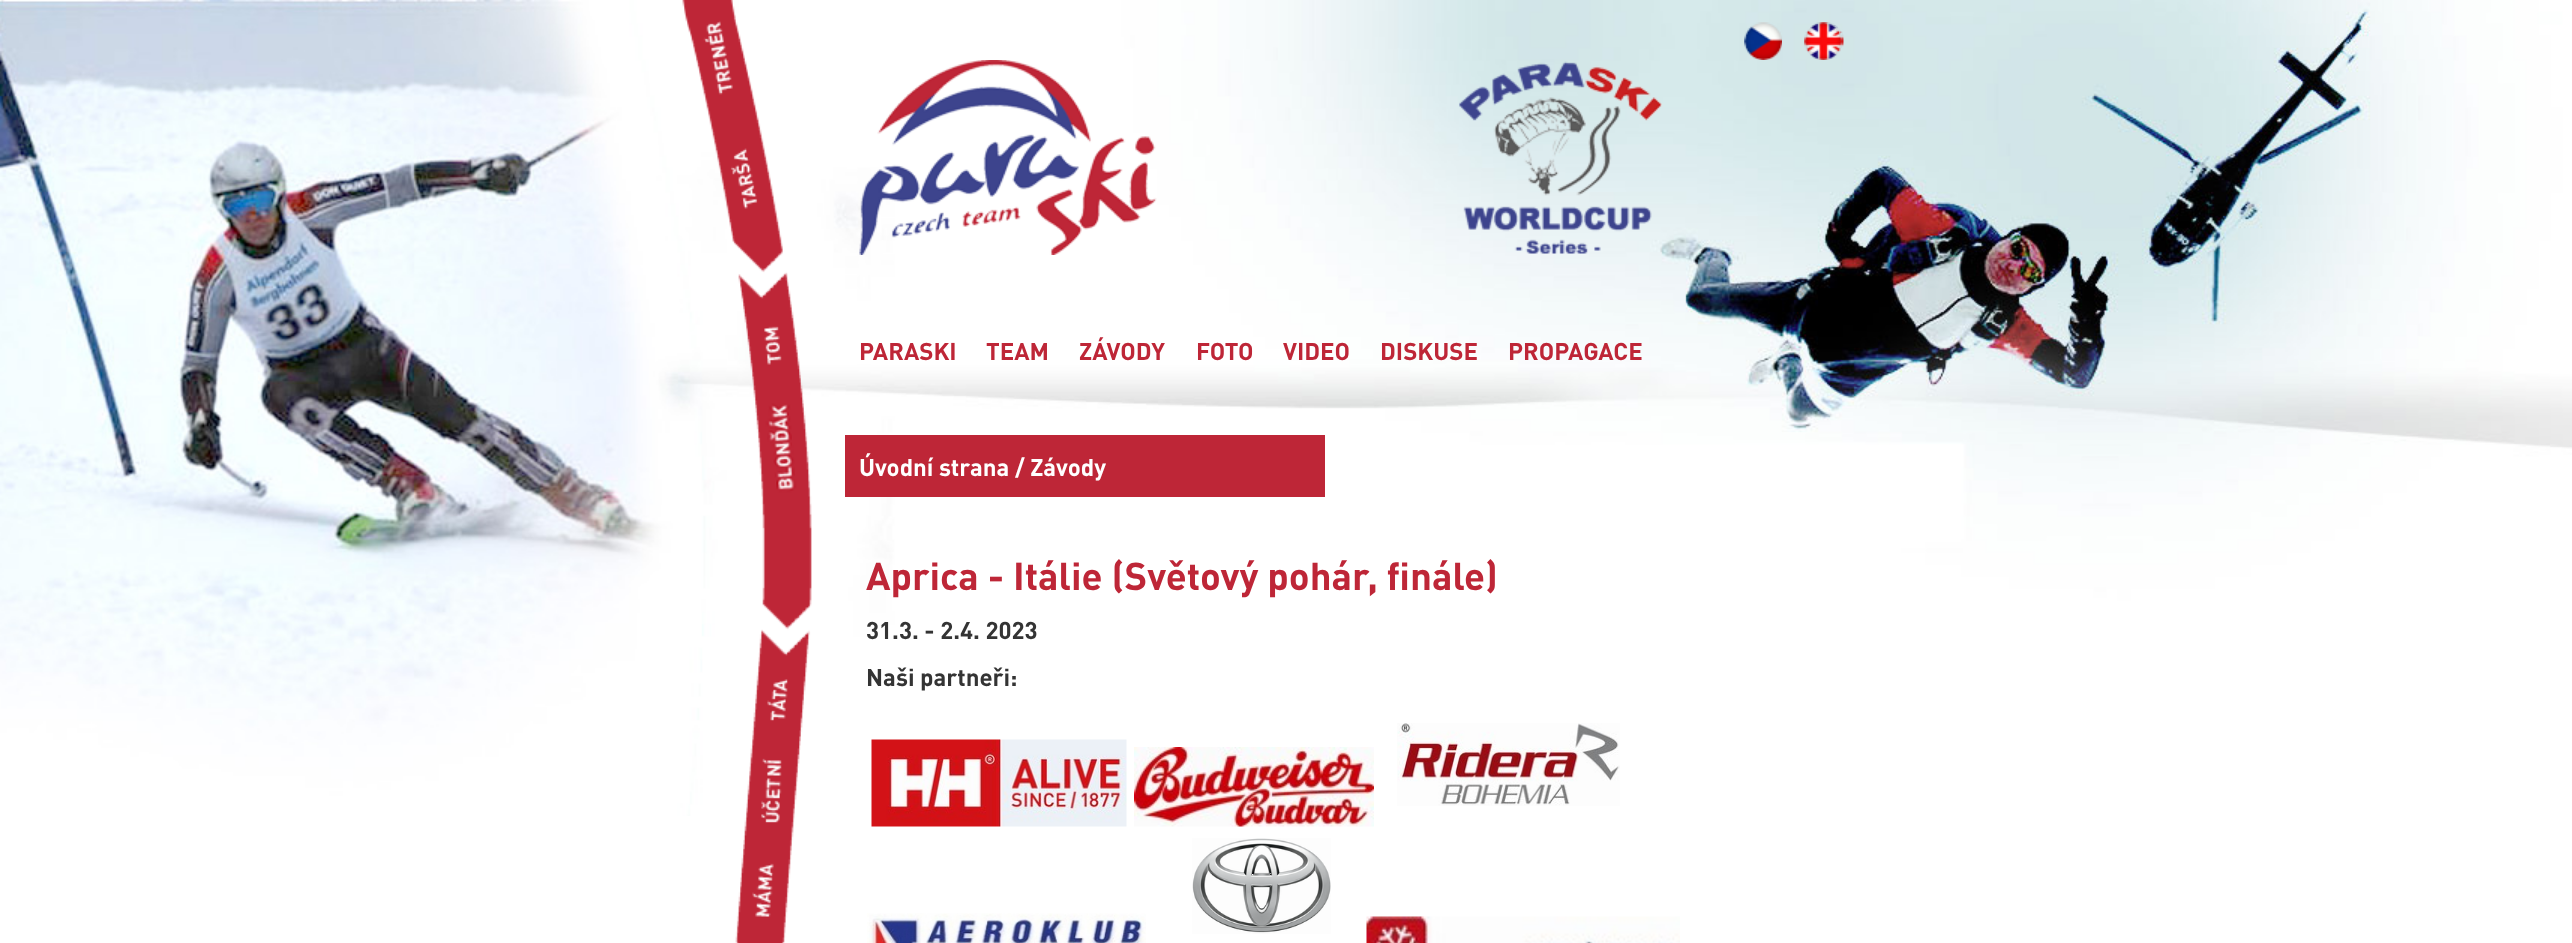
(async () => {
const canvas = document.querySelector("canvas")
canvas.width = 2572
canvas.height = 943
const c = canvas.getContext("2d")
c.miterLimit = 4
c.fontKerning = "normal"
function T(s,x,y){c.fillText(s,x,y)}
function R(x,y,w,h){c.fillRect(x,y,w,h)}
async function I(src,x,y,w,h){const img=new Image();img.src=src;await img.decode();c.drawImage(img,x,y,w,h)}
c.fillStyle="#fff"
R(0,0,2572,943)
await I("1.png",0,0,2572,816)
await I("2.png",682,0,130,943)
await I("3.png",1744,22,38,25)
await I("4.png",1744,22,38,38)
await I("5.png",1804,22,40,25)
await I("6.png",1804,22,38,38)
await I("7.png",859,60,298,195)
await I("8.png",1459,61,203,193)
c.font="bold 24px DIN"
c.fillStyle="#be2637"
T("PARASKI",859,360)
T("TEAM",986,360)
T("ZÁVODY",1079,360)
T("FOTO",1196,360)
T("VIDEO",1283,360)
T("DISKUSE",1380,360)
T("PROPAGACE",1508,360)
R(845,435,480,62)
c.fillStyle="#fff"
T("Úvodní strana / Závody",859,476)
c.font="bold 38.4px DIN"
c.fillStyle="#be2637"
T("Aprica - Itálie (Světový pohár, finále)",866,590)
c.font="bold 24px DIN"
c.fillStyle="#343434"
T("31.3. - 2.4. 2023",866,639)
T("Naši partneři:",866,686)
await I("9.png",871,739,256,88)
await I("10.png",1134,747,240,80)
await I("11.png",1397,723,223,83)
await I("12.png",867,913,279,30)
await I("13.png",1192,838,139,96)
await I("14.png",1366,916,314,27)
})()
